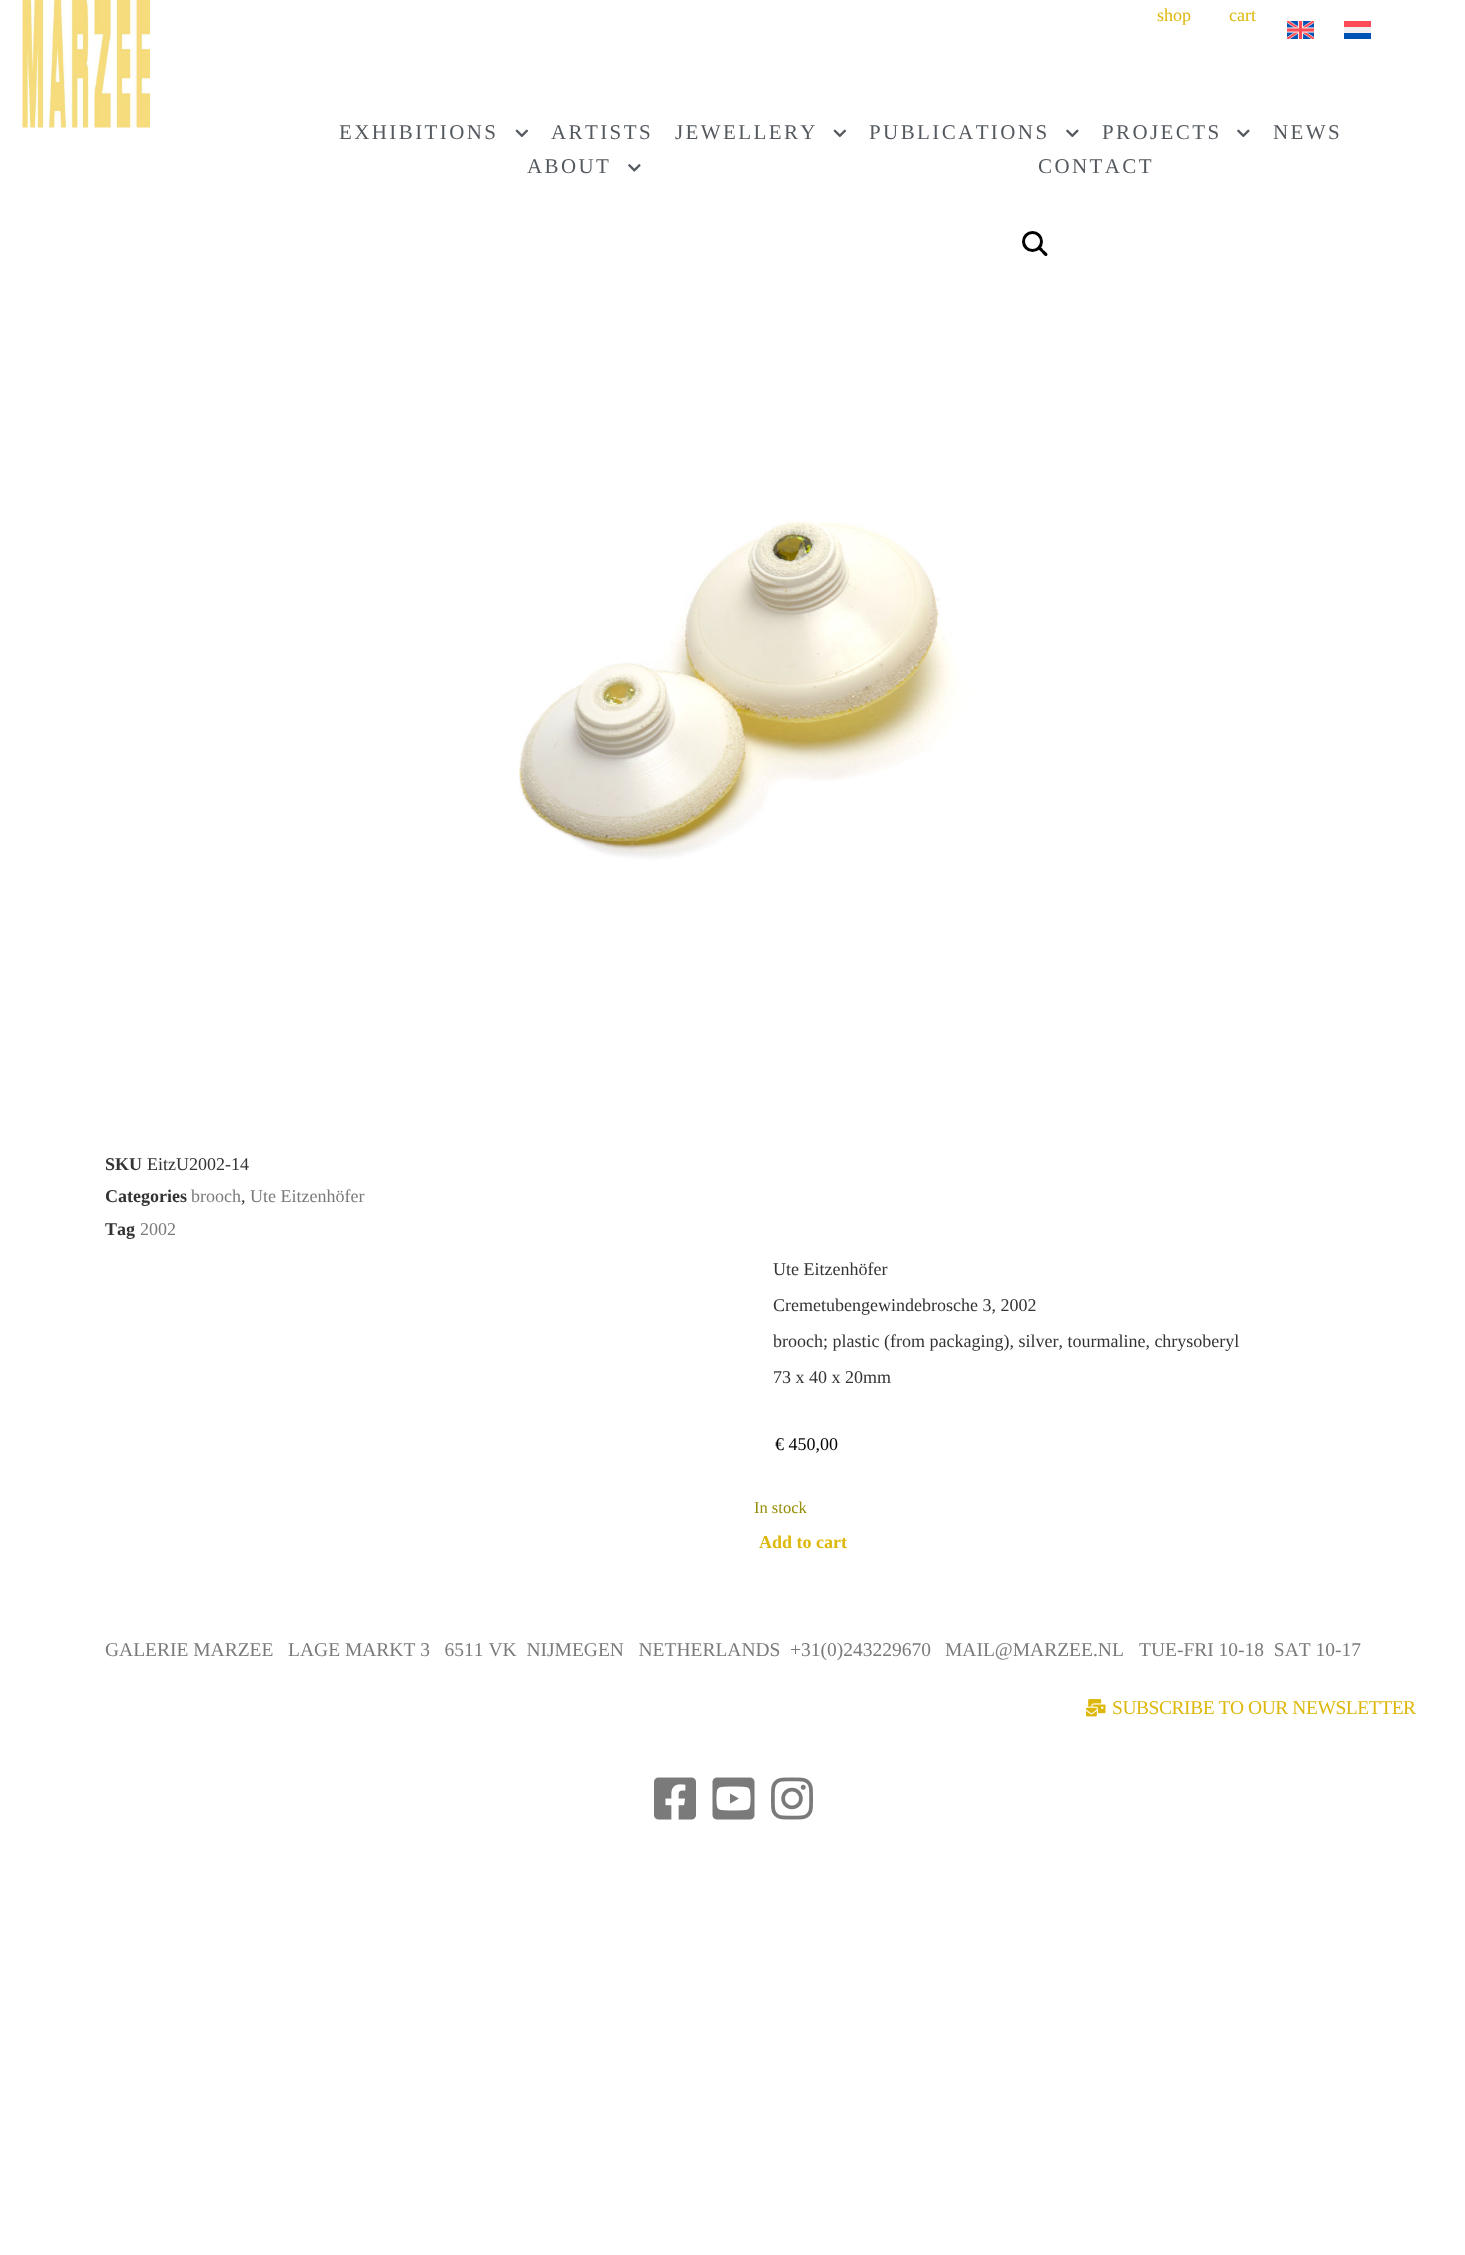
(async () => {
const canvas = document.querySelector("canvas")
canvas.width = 1465
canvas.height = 2255
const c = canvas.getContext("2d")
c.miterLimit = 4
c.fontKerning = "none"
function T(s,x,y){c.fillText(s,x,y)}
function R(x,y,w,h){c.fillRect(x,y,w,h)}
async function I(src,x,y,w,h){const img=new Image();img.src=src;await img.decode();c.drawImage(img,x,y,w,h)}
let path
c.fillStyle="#fff"
R(0,0,1465,2255)
await I("1.png",22,0,128,128)
c.font="18px Liberation Serif"
c.fillStyle="#ddb70b"
T("shop",1157,21)
T("cart",1229,21)
await I("2.png",1287,21,27,18)
c.fillStyle="#ff4b55"
R(1344,21,27,6)
c.fillStyle="#f0f0f0"
R(1344,27,27,6)
c.fillStyle="#0052b4"
R(1344,33,27,6)
c.letterSpacing="2.4px"
c.font="21px Liberation Serif"
c.fillStyle="#54595f"
T("EXHIBITIONS",339,139)
await I("3.png",515,129,13,9)
T("ARTISTS",551,139)
T("JEWELLERY",675,139)
await I("4.png",833,129,14,9)
T("PUBLICATIONS",869,139)
await I("5.png",1066,129,13,9)
T("PROJECTS",1102,139)
await I("5.png",1237,129,13,9)
T("NEWS",1273,139)
T("ABOUT",527,173)
await I("6.png",628,164,13,8)
T("CONTACT",1038,173)
c.beginPath()
c.arc(1032.5,241.5,9,0,7)
c.strokeStyle="#000"
c.lineWidth=3
c.stroke()
c.fillStyle="#000"
path = new Path2D("M1038.5 247c2-1.5 4.5 2.5 5.5 3.5c1 1 5 3.5 3 5c-1.5 2-4.5-2-5-3c-1-1-5-3.5-3.5-5.5z")
c.fill(path)
await I("7.png",519,521,453,339)
c.letterSpacing="0px"
c.font="bold 18px Liberation Serif"
c.fillStyle="#333"
T("SKU",105,1170)
c.font="18px Liberation Serif"
T("EitzU2002-14",147,1170)
c.font="bold 18px Liberation Serif"
T("Categories",105,1202)
c.font="18px Liberation Serif"
c.fillStyle="#7a7a7a"
T("brooch",191,1202)
c.fillStyle="#333"
T(",",241,1202)
c.fillStyle="#7a7a7a"
T("Ute Eitzenhöfer",250,1202)
c.font="bold 18px Liberation Serif"
c.fillStyle="#333"
T("Tag",105,1235)
c.font="18px Liberation Serif"
c.fillStyle="#7a7a7a"
T("2002",140,1235)
c.fillStyle="#333"
T("Ute Eitzenhöfer",773,1275)
T("Cremetubengewindebrosche 3, 2002",773,1311)
T("brooch; plastic (from packaging), silver, tourmaline, chrysoberyl",773,1347)
T("73 x 40 x 20mm",773,1383)
c.fillStyle="#030303"
T("€ 450,00",775,1450)
c.font="16.5px Liberation Serif"
c.fillStyle="#958e09"
T("In stock",754,1513)
c.font="bold 18px Liberation Serif"
c.fillStyle="#ddb70b"
T("Add to cart",759,1548)
c.font="19.5px Liberation Serif"
c.fillStyle="#7a7a7a"
T("GALERIE MARZEE   LAGE MARKT 3   6511 VK  NIJMEGEN   NETHERLANDS",105,1656)
T("+31(0)243229670",790,1656)
T("MAIL@MARZEE.NL",945,1656)
T("TUE-FRI 10-18  SAT 10-17",1139,1656)
await I("8.png",1086,1699,20,18)
c.letterSpacing="-0.45px"
c.fillStyle="#ddb70b"
T("SUBSCRIBE TO OUR NEWSLETTER",1112,1714)
await I("9.png",654,1777,42,43)
await I("10.png",712,1777,43,43)
await I("11.png",771,1777,42,43)
})()
